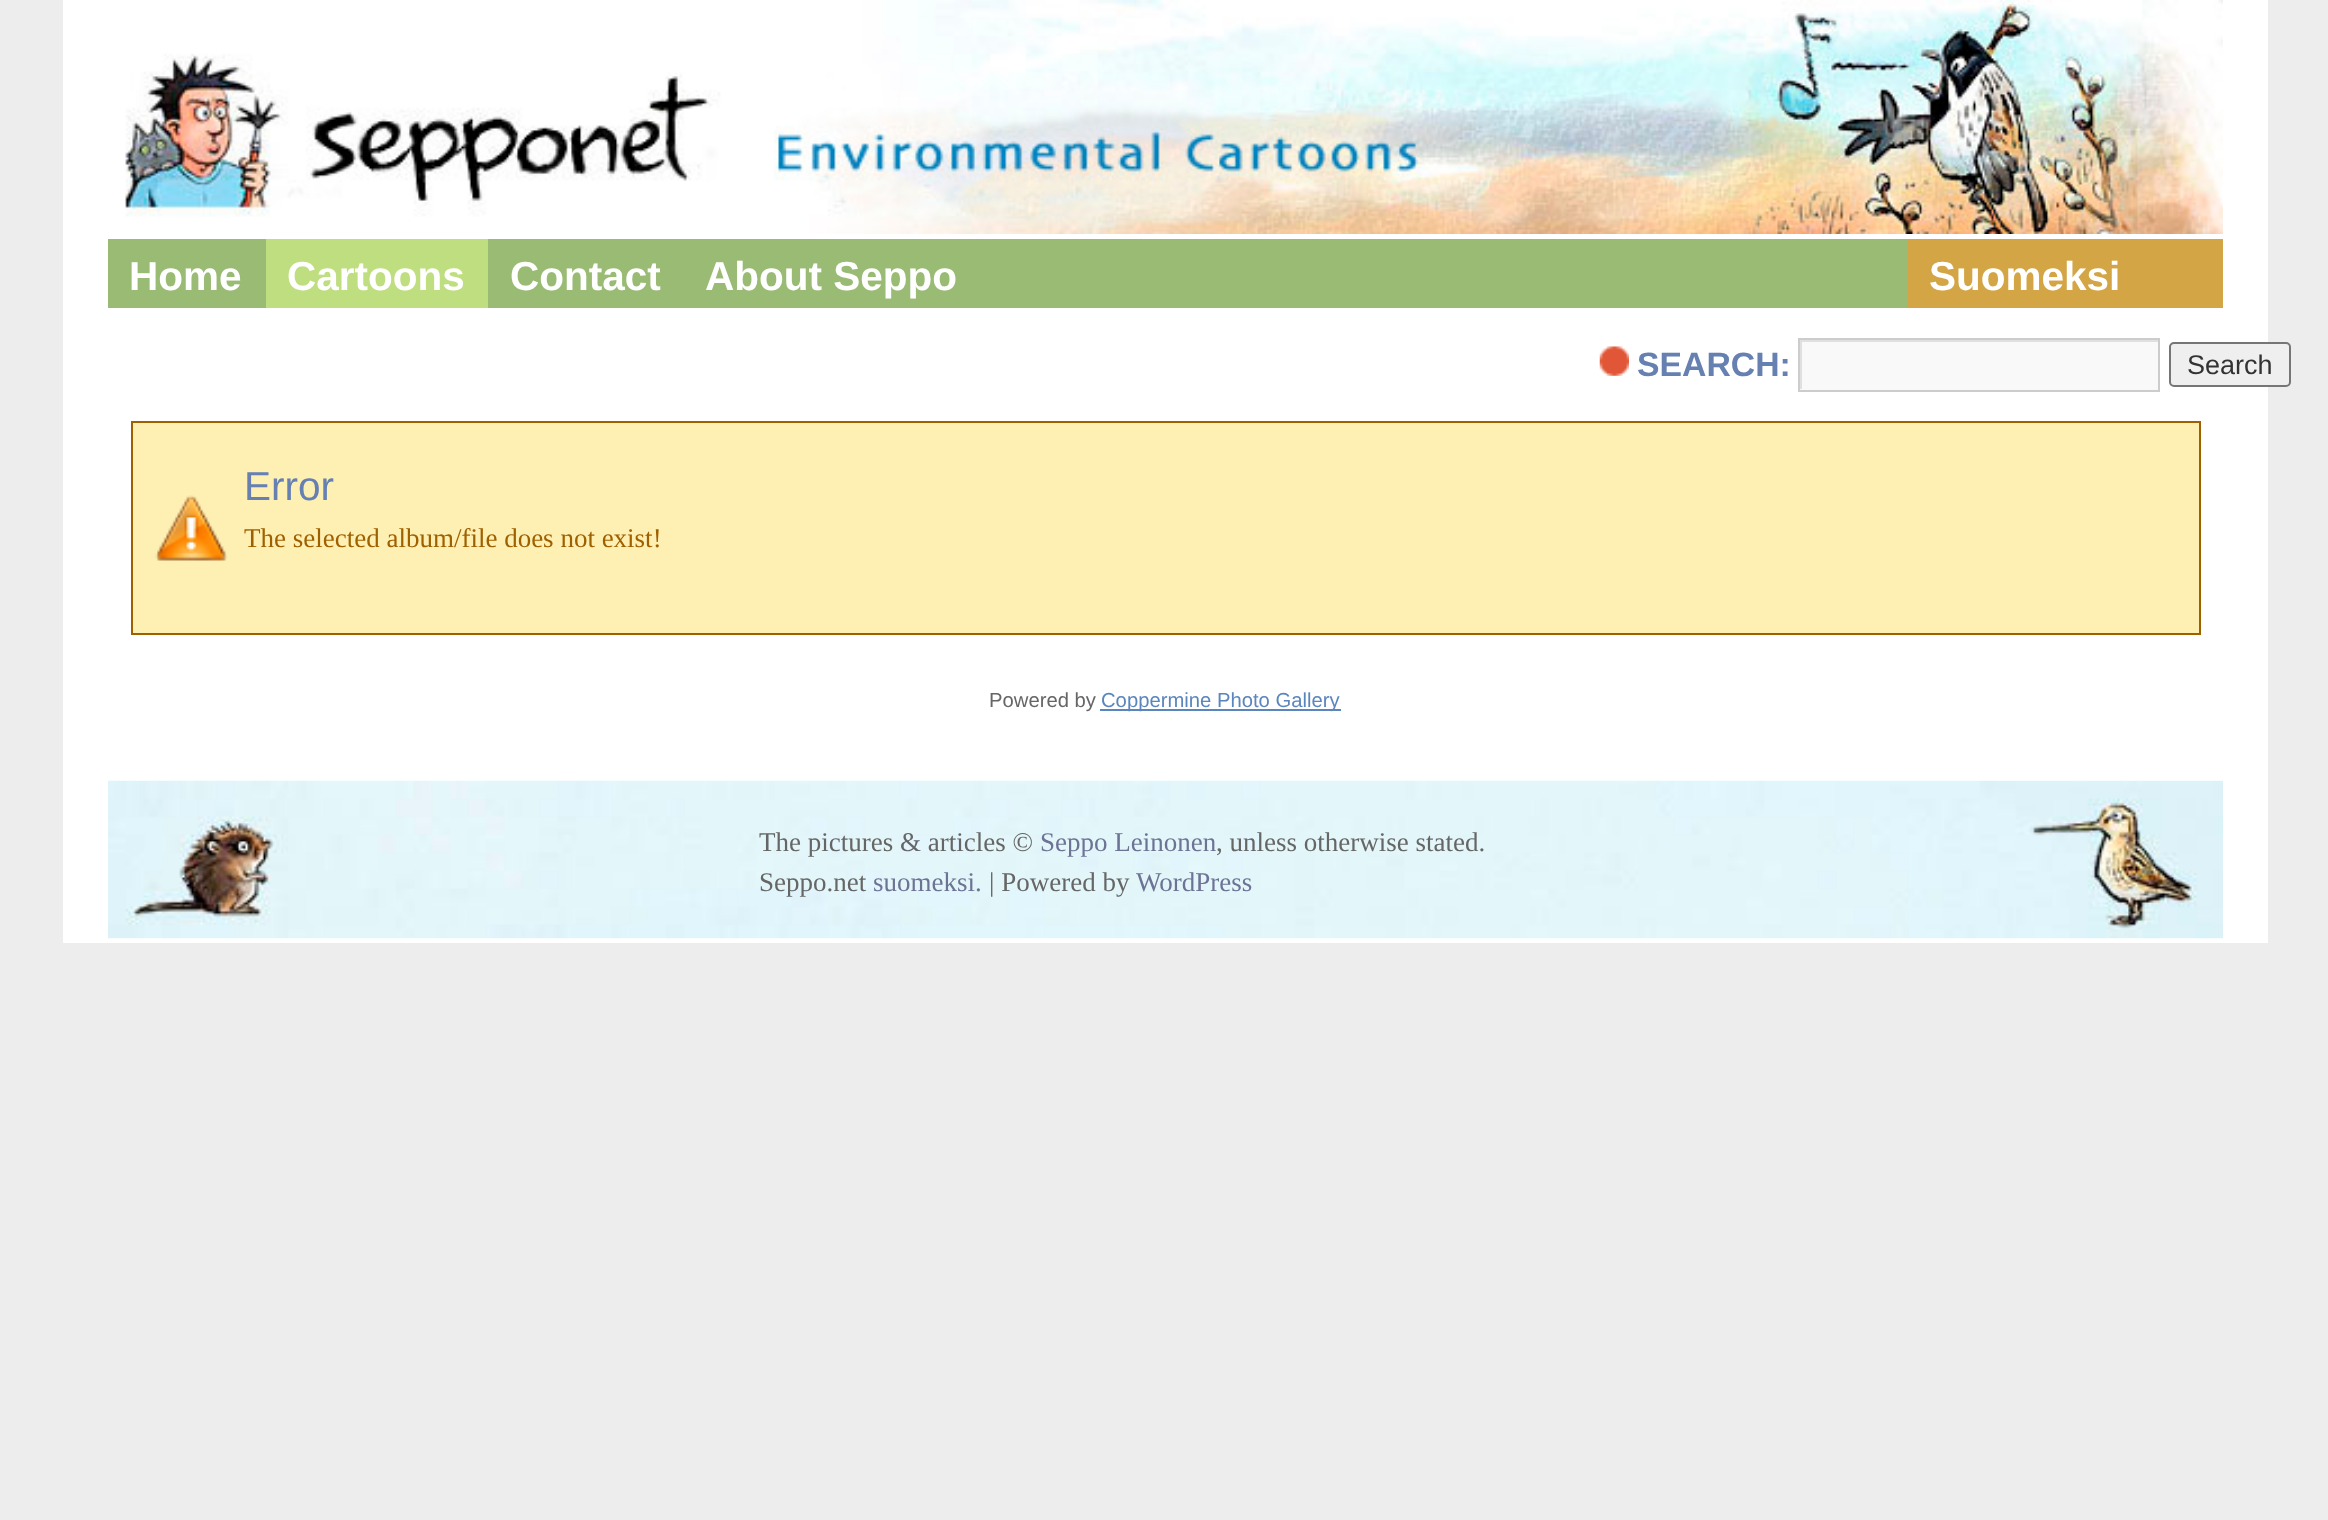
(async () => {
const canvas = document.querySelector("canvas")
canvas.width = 2328
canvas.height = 1520
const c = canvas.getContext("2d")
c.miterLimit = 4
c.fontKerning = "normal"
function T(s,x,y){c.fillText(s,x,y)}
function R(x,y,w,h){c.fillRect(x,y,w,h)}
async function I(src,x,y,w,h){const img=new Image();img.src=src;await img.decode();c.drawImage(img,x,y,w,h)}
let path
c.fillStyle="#ededed"
R(0,0,2328,1520)
c.fillStyle="#fff"
R(63,0,2205,943)
await I("1.png",125,0,2098,234)
c.fillStyle="#99bb74"
R(108,239,1800,69)
c.font="bold 40.5px Liberation Sans"
c.fillStyle="#fff"
T("Home",129,290)
c.fillStyle="#bfde7f"
R(266,239,222,69)
c.fillStyle="#fff"
T("Cartoons",287,290)
T("Contact",510,290)
T("About Seppo",705,290)
c.fillStyle="#d3a544"
R(1908,239,315,69)
c.fillStyle="#fff"
T("Suomeksi",1929,290)
await I("2.png",1599,346,30,30)
c.font="bold 33.75px Liberation Sans"
c.fillStyle="#6580b1"
T("SEARCH:",1637,376)
c.fillStyle="#f9f9f9"
R(1800,342,358,48)
c.save()
c.beginPath()
c.rect(1800,340,358,49)
c.clip()
c.fillStyle="#e0e0e0"
path = new Path2D("M1577 117h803v495h-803zm225 225h358v50h-358z")
c.fill(path,"evenodd")
c.restore()
c.strokeStyle="#ccc"
c.lineWidth=2
c.strokeRect(1799,339,360,52)
c.fillStyle="#efefef"
c.beginPath()
c.roundRect(2170,343,120,43,4)
c.fill()
c.strokeStyle="#767676"
c.stroke()
c.font="27px Liberation Sans"
c.fillStyle="#333"
T("Search",2187,374)
c.fillStyle="#feefb3"
R(133,423,2066,210)
await I("3.png",155,495,72,66)
c.strokeStyle="#9f6000"
c.strokeRect(132,422,2068,212)
c.font="40.5px Liberation Sans"
c.fillStyle="#6580b1"
T("Error",244,500)
c.font="27px Liberation Serif"
c.fillStyle="#9f6000"
T("The selected album/file does not exist!",244,547)
c.font="20.25px Liberation Sans"
c.fillStyle="#666"
T("Powered by",989,707)
c.fillStyle="#5b86bd"
R(1100,709,241,2)
T("Coppermine Photo Gallery",1101,707)
await I("4.png",108,780,2115,159)
c.font="27px Liberation Serif"
c.fillStyle="#666"
T("The pictures & articles ©",759,851)
c.fillStyle="#6d7395"
T("Seppo Leinonen",1040,851)
c.fillStyle="#666"
T(", unless otherwise stated.",1216,851)
T("Seppo.net",759,891)
c.fillStyle="#6d7395"
T("suomeksi.",873,891)
c.fillStyle="#666"
T("| Powered by",989,891)
c.fillStyle="#6d7395"
T("WordPress",1136,891)
})()
